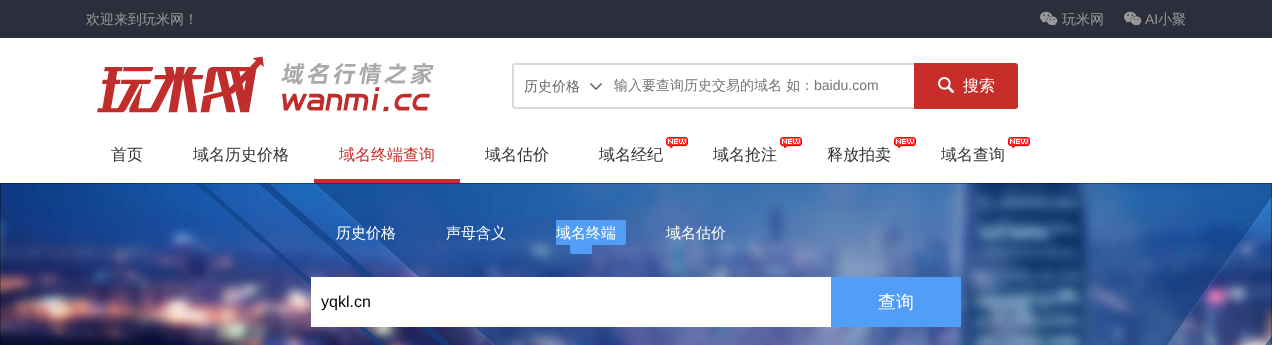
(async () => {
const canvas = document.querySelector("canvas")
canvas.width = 1272
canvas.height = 345
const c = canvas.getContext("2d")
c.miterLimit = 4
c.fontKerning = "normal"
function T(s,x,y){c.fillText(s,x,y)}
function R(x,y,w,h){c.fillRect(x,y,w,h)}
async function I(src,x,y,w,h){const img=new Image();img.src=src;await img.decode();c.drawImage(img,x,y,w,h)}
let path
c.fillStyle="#fff"
R(0,0,1272,345)
c.fillStyle="#2c2f3b"
R(0,0,1272,38)
c.font="500 14px WenQuanYi Zen Hei"
c.fillStyle="#999"
T("欢迎来到玩米网！",86,24)
await I("1.png",1040,11,18,15)
T("玩米网",1062,24)
await I("1.png",1124,11,18,15)
c.font="14px Liberation Sans"
T("AI",1145,24)
c.font="500 14px WenQuanYi Zen Hei"
T("小聚",1158,24)
await I("2.png",97,56,337,57)
c.fillStyle="#d9d9d9"
path = new Path2D("M515 63h399v46h-399c-2 0-3-1-3-3v-40c0-2 1-3 3-3zm0 2h399v42h-399l-1-1v-41z")
c.fill(path,"evenodd")
c.fillStyle="#666"
T("历史价格",524,91)
await I("3.png",590,83,12,7)
c.fillStyle="#757575"
T("输入要查询历史交易的域名 如：",614,90)
c.font="14px Liberation Sans"
T("baidu.com",814,90)
c.fillStyle="#c82e29"
c.beginPath()
c.roundRect(914,63,104,46,[0,3,3,0])
c.fill()
await I("4.png",938,77,16,16)
c.font="500 16px WenQuanYi Zen Hei"
c.fillStyle="#fff"
T("搜索",963,91)
c.fillStyle="#333"
T("首页",111,160)
T("域名历史价格",193,160)
c.fillStyle="#c82e29"
R(314,179,146,4)
T("域名终端查询",339,160)
c.fillStyle="#333"
T("域名估价",485,160)
await I("5.png",666,137,22,12)
T("域名经纪",599,160)
await I("5.png",780,137,22,12)
T("域名抢注",713,160)
await I("5.png",894,137,22,12)
T("释放拍卖",827,160)
await I("5.png",1008,137,22,12)
T("域名查询",941,160)
await I("6.png",0,183,1272,162)
c.strokeStyle="#0000004d"
c.strokeRect(.5,183.5,1271,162)
c.font="500 15px WenQuanYi Zen Hei"
c.fillStyle="#fff"
T("历史价格",336,238)
T("声母含义",446,238)
c.fillStyle="#529df5"
c.beginPath()
c.roundRect(570,240,22,14,[2,0,0,2])
c.fill()
c.beginPath()
c.roundRect(556,220,70,25,[0,2,2,0])
c.fill()
c.fillStyle="#fff"
T("域名终端",556,238)
T("域名估价",666,238)
R(311,277,520,50)
c.font="16px Liberation Sans"
c.fillStyle="#000"
T("yqkl.cn",321,307)
c.fillStyle="#529df5"
R(831,277,130,50)
c.font="500 18px WenQuanYi Zen Hei"
c.fillStyle="#fff"
T("查询",878,308)
})()
